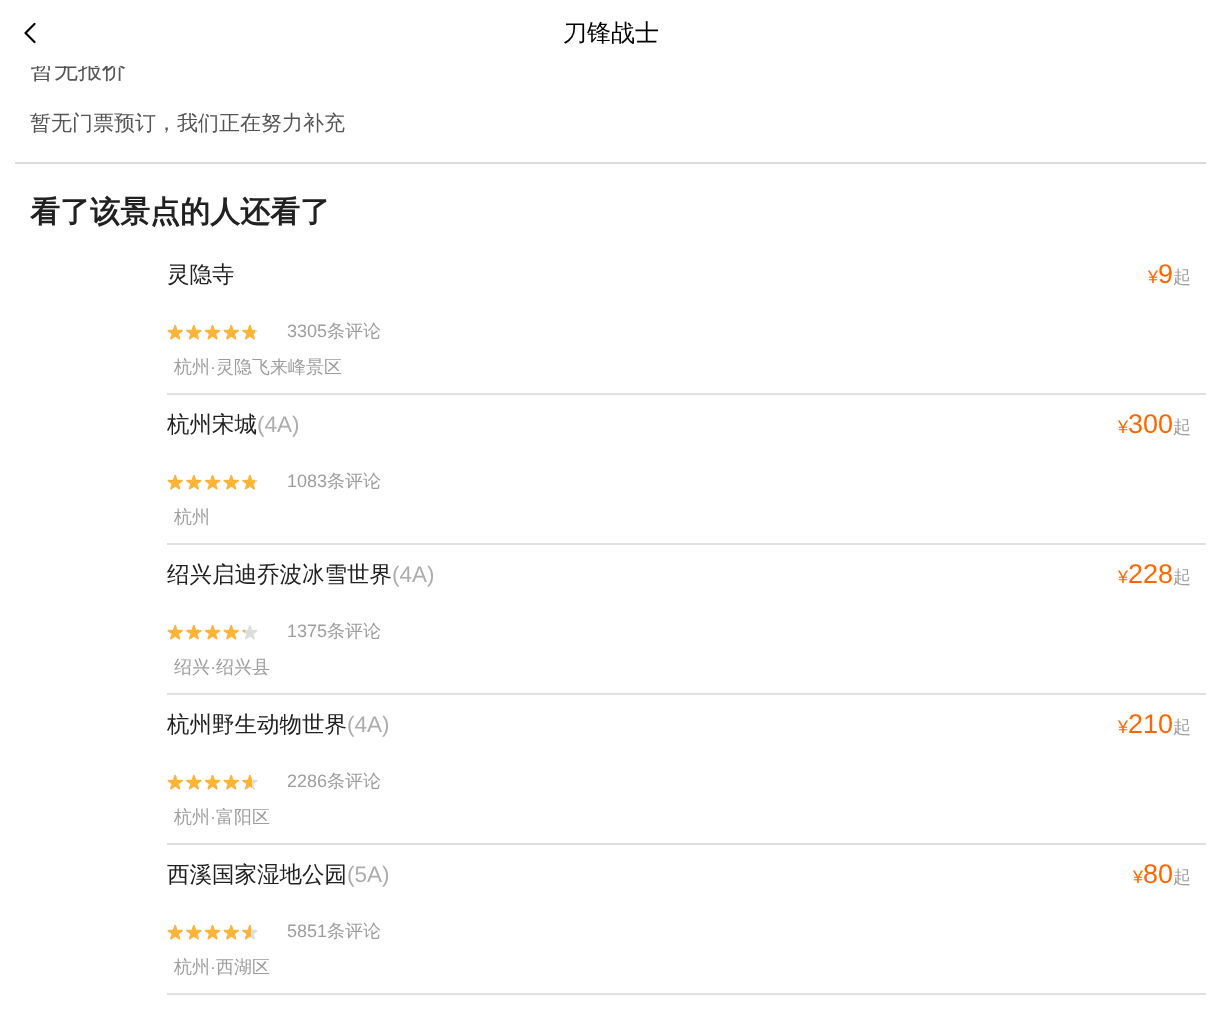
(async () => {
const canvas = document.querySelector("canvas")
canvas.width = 1220
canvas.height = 1019
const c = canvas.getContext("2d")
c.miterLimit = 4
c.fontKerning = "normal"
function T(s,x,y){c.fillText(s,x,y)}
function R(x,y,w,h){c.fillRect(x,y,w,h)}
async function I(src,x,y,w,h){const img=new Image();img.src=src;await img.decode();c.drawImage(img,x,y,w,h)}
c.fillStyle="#fff"
R(0,0,1220,1019)
c.font="500 24px WenQuanYi Zen Hei"
c.fillStyle="#555"
T("暂无报价",30,78)
c.fillStyle="#fff"
R(30,58,92,8)
await I("1.png",24,22,12,22)
c.fillStyle="#000"
T("刀锋战士",563,41)
c.font="500 21px WenQuanYi Zen Hei"
c.fillStyle="#555"
T("暂无门票预订，我们正在努力补充",30,130)
c.fillStyle="#dadada"
R(15,162,1191,2)
c.font="bold 30px WenQuanYi Zen Hei"
c.fillStyle="#212121"
T("看了该景点的人还看了",30,222)
c.font="500 22.5px WenQuanYi Zen Hei"
T("灵隐寺",167,282)
c.font="18px Liberation Sans"
c.fillStyle="#f60"
T("¥",1148,283)
c.font="27px Liberation Sans"
T("9",1158,283)
c.font="500 18px WenQuanYi Zen Hei"
c.fillStyle="#9e9e9e"
T("起",1173,283)
await I("3.png",167,325,91,15)
await I("2.png",167,324,88,16)
c.font="18px Liberation Sans"
T("3305",287,337)
c.font="500 18px WenQuanYi Zen Hei"
T("条评论",327,337)
T("杭州",174,373)
c.font="18px Liberation Sans"
T("·",210,373)
c.font="500 18px WenQuanYi Zen Hei"
T("灵隐飞来峰景区",216,373)
c.fillStyle="#e0e0e0"
R(167,393,1039,2)
c.font="500 22.5px WenQuanYi Zen Hei"
c.fillStyle="#212121"
T("杭州宋城",167,432)
c.font="22.5px Liberation Sans"
c.fillStyle="#adadad"
T("(4A)",257,432)
c.font="18px Liberation Sans"
c.fillStyle="#f60"
T("¥",1118,433)
c.font="27px Liberation Sans"
T("300",1128,433)
c.font="500 18px WenQuanYi Zen Hei"
c.fillStyle="#9e9e9e"
T("起",1173,433)
await I("3.png",167,475,91,15)
await I("2.png",167,474,88,16)
c.font="18px Liberation Sans"
T("1083",287,487)
c.font="500 18px WenQuanYi Zen Hei"
T("条评论",327,487)
T("杭州",174,523)
c.fillStyle="#e0e0e0"
R(167,543,1039,2)
c.font="500 22.5px WenQuanYi Zen Hei"
c.fillStyle="#212121"
T("绍兴启迪乔波冰雪世界",167,582)
c.font="22.5px Liberation Sans"
c.fillStyle="#adadad"
T("(4A)",392,582)
c.font="18px Liberation Sans"
c.fillStyle="#f60"
T("¥",1118,583)
c.font="27px Liberation Sans"
T("228",1128,583)
c.font="500 18px WenQuanYi Zen Hei"
c.fillStyle="#9e9e9e"
T("起",1173,583)
await I("3.png",167,625,91,15)
await I("4.png",167,624,78,16)
c.font="18px Liberation Sans"
T("1375",287,637)
c.font="500 18px WenQuanYi Zen Hei"
T("条评论",327,637)
T("绍兴",174,673)
c.font="18px Liberation Sans"
T("·",210,673)
c.font="500 18px WenQuanYi Zen Hei"
T("绍兴县",216,673)
c.fillStyle="#e0e0e0"
R(167,693,1039,2)
c.font="500 22.5px WenQuanYi Zen Hei"
c.fillStyle="#212121"
T("杭州野生动物世界",167,732)
c.font="22.5px Liberation Sans"
c.fillStyle="#adadad"
T("(4A)",347,732)
c.font="18px Liberation Sans"
c.fillStyle="#f60"
T("¥",1118,733)
c.font="27px Liberation Sans"
T("210",1128,733)
c.font="500 18px WenQuanYi Zen Hei"
c.fillStyle="#9e9e9e"
T("起",1173,733)
await I("3.png",167,775,91,15)
await I("5.png",167,774,85,16)
c.font="18px Liberation Sans"
T("2286",287,787)
c.font="500 18px WenQuanYi Zen Hei"
T("条评论",327,787)
T("杭州",174,823)
c.font="18px Liberation Sans"
T("·",210,823)
c.font="500 18px WenQuanYi Zen Hei"
T("富阳区",216,823)
c.fillStyle="#e0e0e0"
R(167,843,1039,2)
c.font="500 22.5px WenQuanYi Zen Hei"
c.fillStyle="#212121"
T("西溪国家湿地公园",167,882)
c.font="22.5px Liberation Sans"
c.fillStyle="#adadad"
T("(5A)",347,882)
c.font="18px Liberation Sans"
c.fillStyle="#f60"
T("¥",1133,883)
c.font="27px Liberation Sans"
T("80",1143,883)
c.font="500 18px WenQuanYi Zen Hei"
c.fillStyle="#9e9e9e"
T("起",1173,883)
await I("3.png",167,925,91,15)
await I("6.png",167,924,84,16)
c.font="18px Liberation Sans"
T("5851",287,937)
c.font="500 18px WenQuanYi Zen Hei"
T("条评论",327,937)
T("杭州",174,973)
c.font="18px Liberation Sans"
T("·",210,973)
c.font="500 18px WenQuanYi Zen Hei"
T("西湖区",216,973)
c.fillStyle="#e0e0e0"
R(167,993,1039,2)
})()
